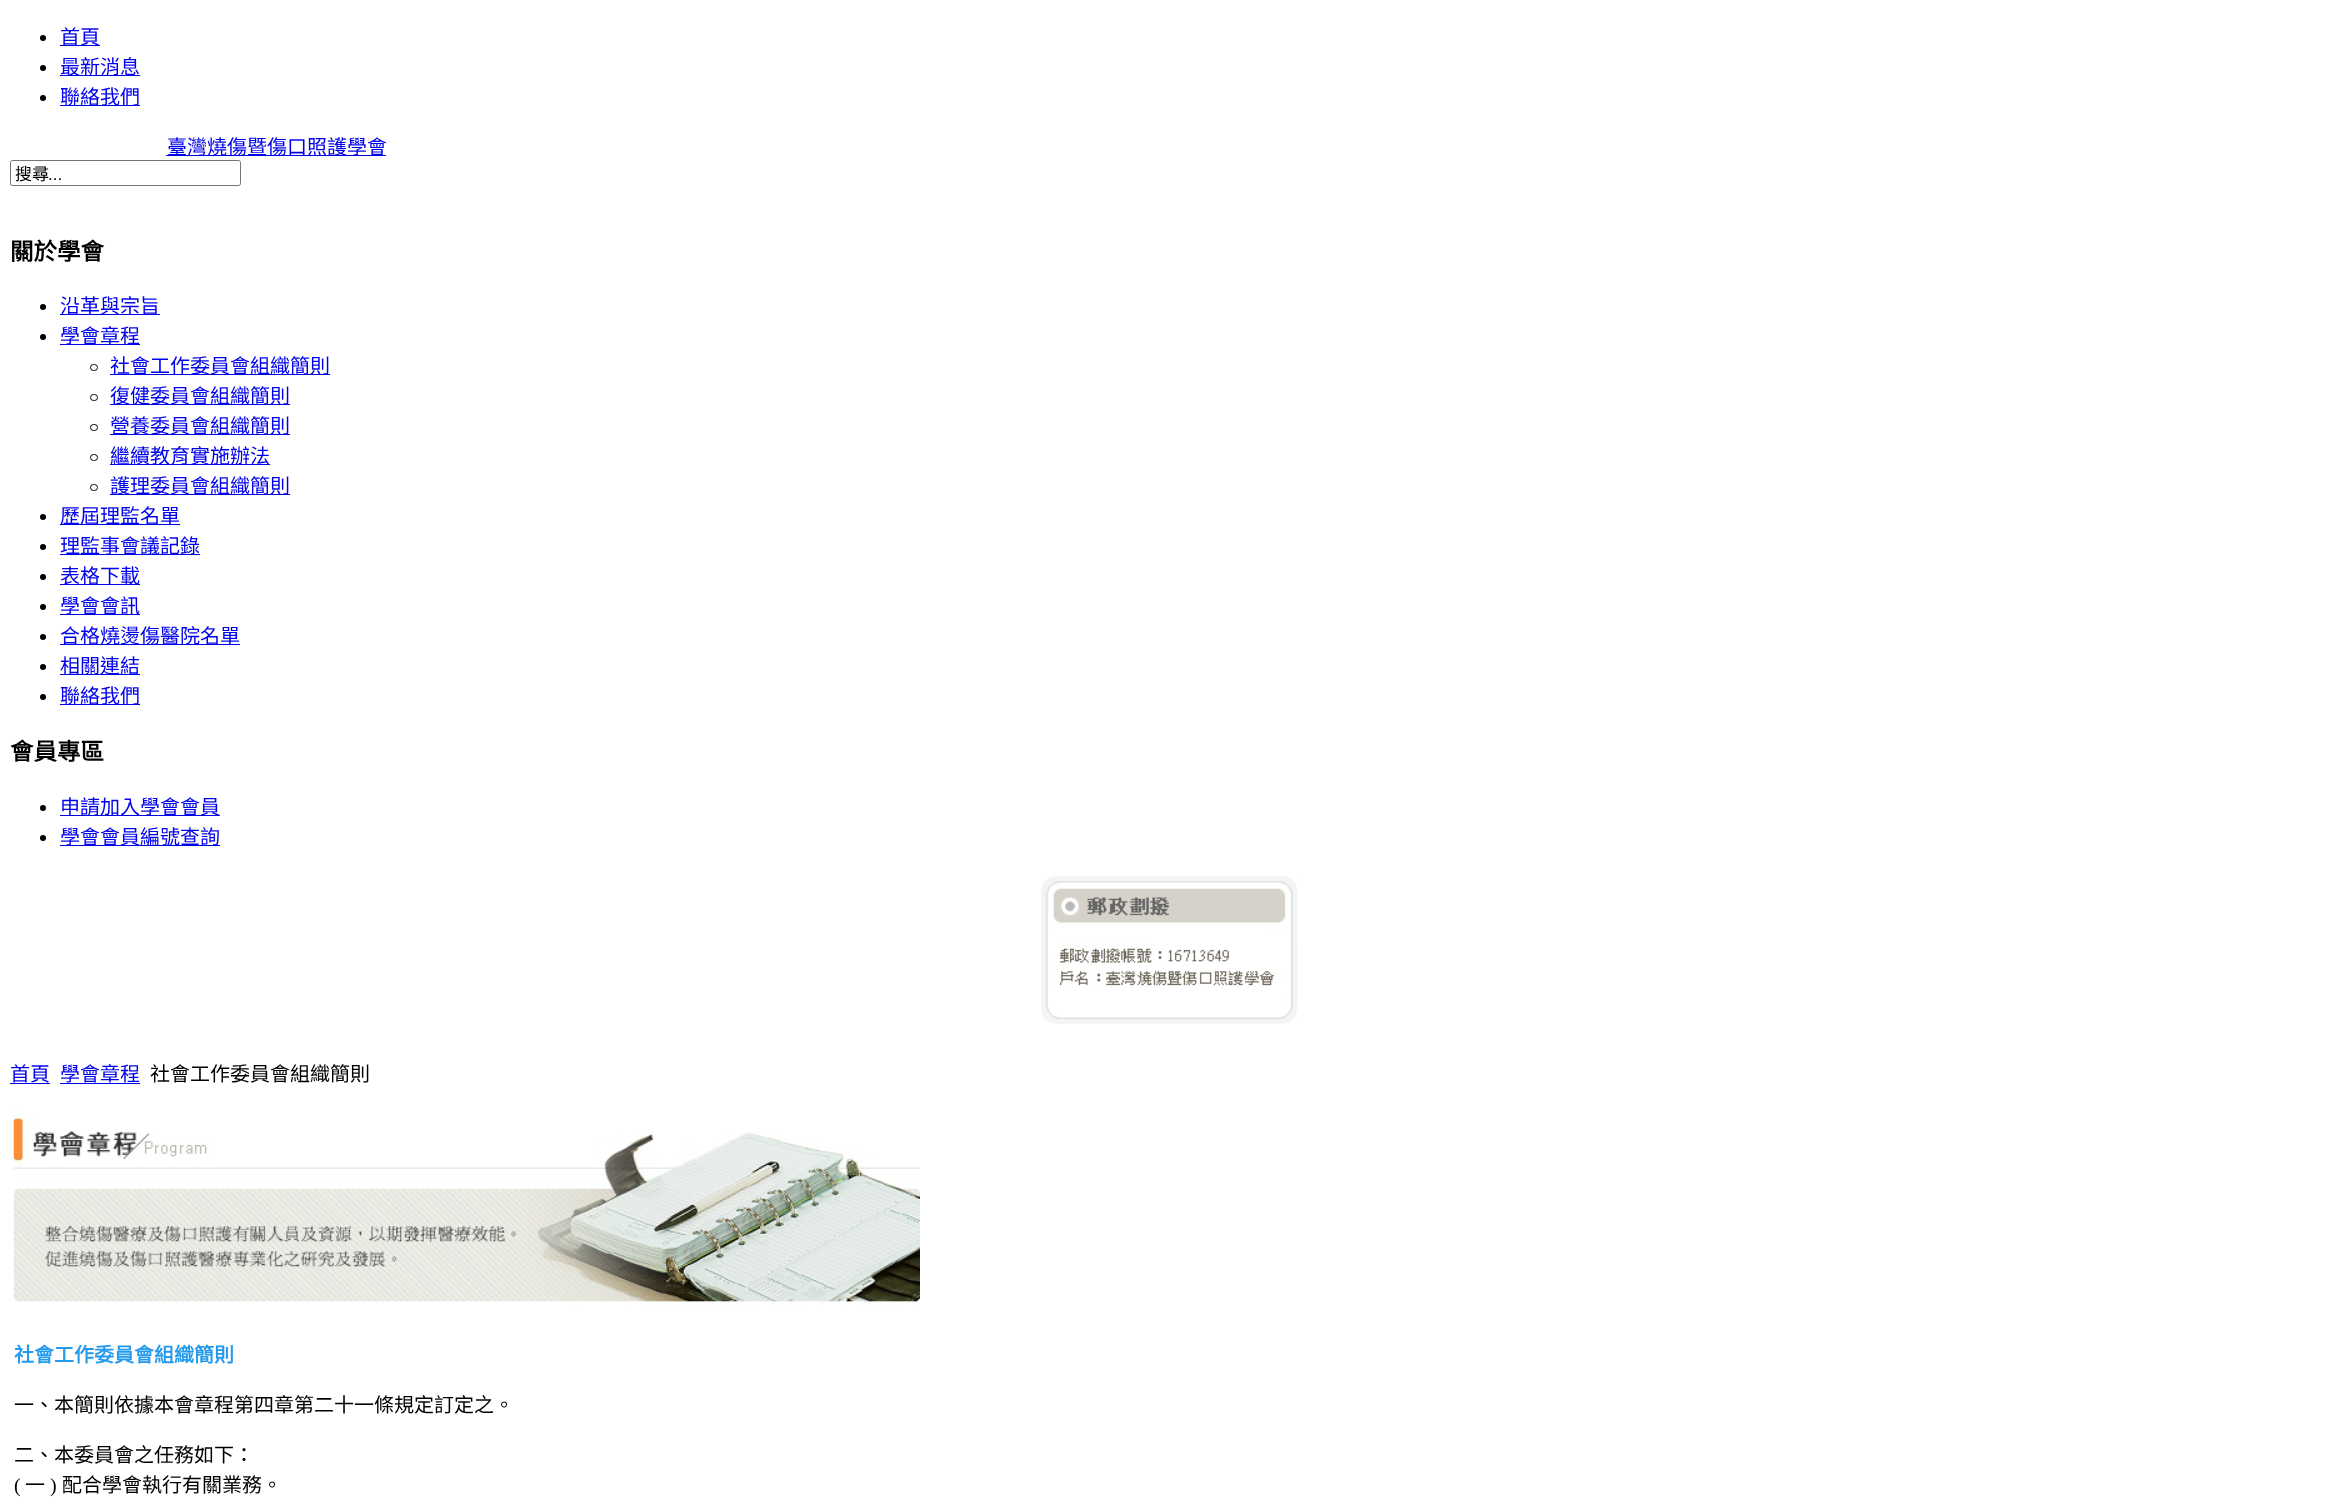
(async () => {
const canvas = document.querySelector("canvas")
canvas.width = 2338
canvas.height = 1505
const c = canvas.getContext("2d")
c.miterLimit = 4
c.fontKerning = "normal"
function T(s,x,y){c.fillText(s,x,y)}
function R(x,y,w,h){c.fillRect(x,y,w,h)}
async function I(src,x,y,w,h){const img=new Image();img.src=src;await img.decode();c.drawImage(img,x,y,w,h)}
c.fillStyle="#fff"
R(0,0,2338,1505)
c.fillStyle="#000"
c.beginPath()
c.arc(43,38,3,0,7)
c.fill()
c.fillStyle="#00e"
R(60,45,40,1)
c.font="20px Noto Sans CJK TC"
T("首頁",60,44)
c.fillStyle="#000"
c.beginPath()
c.arc(43,68,3,0,7)
c.fill()
c.fillStyle="#00e"
R(60,75,80,1)
T("最新消息",60,74)
c.fillStyle="#000"
c.beginPath()
c.arc(43,98,3,0,7)
c.fill()
c.fillStyle="#00e"
R(60,105,80,1)
T("聯絡我們",60,104)
R(166,155,220,1)
T("臺灣燒傷暨傷口照護學會",167,154)
c.beginPath()
c.roundRect(10.5,160.5,230,25,2)
c.strokeStyle="#767676"
c.stroke()
c.font="17px Noto Sans CJK TC"
c.fillStyle="#000"
T("搜尋",15,180)
c.font="17px Liberation Sans"
T("...",48,180)
c.font="bold 23.5px Noto Sans CJK TC"
T("關於學會",10,260)
c.beginPath()
c.arc(43,307,3,0,7)
c.fill()
c.fillStyle="#00e"
R(60,314,100,1)
c.font="20px Noto Sans CJK TC"
T("沿革與宗旨",60,313)
c.fillStyle="#000"
c.beginPath()
c.arc(43,337,3,0,7)
c.fill()
c.fillStyle="#00e"
R(60,344,80,1)
T("學會章程",60,343)
c.beginPath()
c.roundRect(90.5,364.5,7,6,3)
c.strokeStyle="#000"
c.stroke()
R(110,374,220,1)
T("社會工作委員會組織簡則",110,373)
c.beginPath()
c.roundRect(90.5,394.5,7,6,3)
c.stroke()
R(110,404,180,1)
T("復健委員會組織簡則",110,403)
c.beginPath()
c.roundRect(90.5,424.5,7,6,3)
c.stroke()
R(110,434,180,1)
T("營養委員會組織簡則",110,433)
c.beginPath()
c.roundRect(90.5,454.5,7,6,3)
c.stroke()
R(110,464,160,1)
T("繼續教育實施辦法",110,463)
c.beginPath()
c.roundRect(90.5,484.5,7,6,3)
c.stroke()
R(110,494,180,1)
T("護理委員會組織簡則",110,493)
c.fillStyle="#000"
c.beginPath()
c.arc(43,517,3,0,7)
c.fill()
c.fillStyle="#00e"
R(60,524,120,1)
T("歷屆理監名單",60,523)
c.fillStyle="#000"
c.beginPath()
c.arc(43,547,3,0,7)
c.fill()
c.fillStyle="#00e"
R(60,554,140,1)
T("理監事會議記錄",60,553)
c.fillStyle="#000"
c.beginPath()
c.arc(43,577,3,0,7)
c.fill()
c.fillStyle="#00e"
R(60,584,80,1)
T("表格下載",60,583)
c.fillStyle="#000"
c.beginPath()
c.arc(43,607,3,0,7)
c.fill()
c.fillStyle="#00e"
R(60,614,80,1)
T("學會會訊",60,613)
c.fillStyle="#000"
c.beginPath()
c.arc(43,637,3,0,7)
c.fill()
c.fillStyle="#00e"
R(60,644,180,1)
T("合格燒燙傷醫院名單",60,643)
c.fillStyle="#000"
c.beginPath()
c.arc(43,667,3,0,7)
c.fill()
c.fillStyle="#00e"
R(60,674,80,1)
T("相關連結",60,673)
c.fillStyle="#000"
c.beginPath()
c.arc(43,697,3,0,7)
c.fill()
c.fillStyle="#00e"
R(60,704,80,1)
T("聯絡我們",60,703)
c.font="bold 23.5px Noto Sans CJK TC"
c.fillStyle="#000"
T("會員專區",10,760)
c.beginPath()
c.arc(43,808,3,0,7)
c.fill()
c.fillStyle="#00e"
R(60,815,160,1)
c.font="20px Noto Sans CJK TC"
T("申請加入學會會員",60,814)
c.fillStyle="#000"
c.beginPath()
c.arc(43,838,3,0,7)
c.fill()
c.fillStyle="#00e"
R(60,845,160,1)
T("學會會員編號查詢",60,844)
await I("1.png",1041,876,257,148)
T("首頁",10,1081)
R(10,1083,40,1)
T("學會章程",60,1081)
R(60,1083,80,1)
c.fillStyle="#000"
T("社會工作委員會組織簡則",150,1081)
await I("2.png",13,1111,907,196)
c.font="bold 20px Noto Sans CJK TC"
c.fillStyle="#249aed"
T("社會工作委員會組織簡則",14,1362)
c.font="20px Noto Sans CJK TC"
c.fillStyle="#000"
T("一、本簡則依據本會章程第四章第二十一條規定訂定之。",14,1412)
T("二、本委員會之任務如下：",14,1462)
c.font="20px Liberation Serif"
T("(",14,1492)
c.font="20px Noto Sans CJK TC"
T("一",25,1492)
c.font="20px Liberation Serif"
T(")",50,1492)
c.font="20px Noto Sans CJK TC"
T("配合學會執行有關業務。",62,1492)
})()
